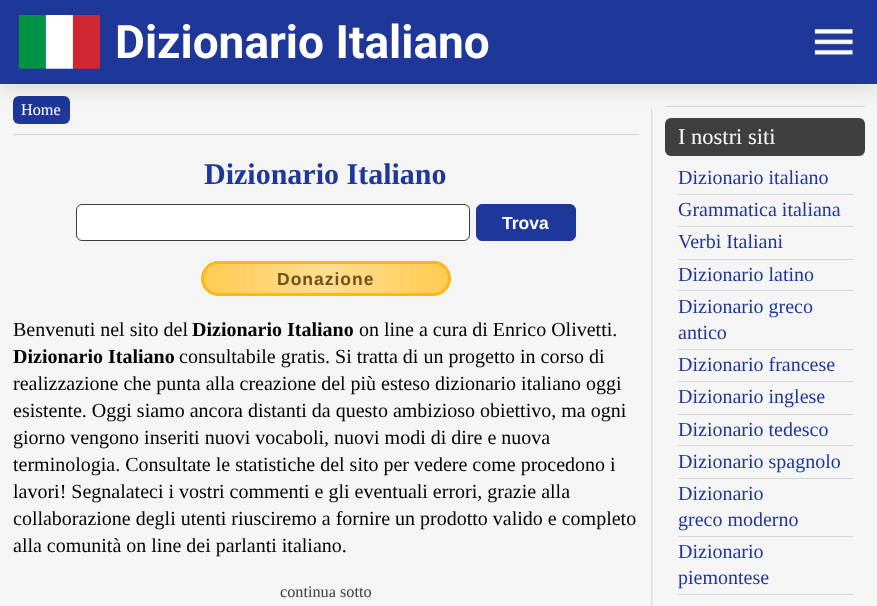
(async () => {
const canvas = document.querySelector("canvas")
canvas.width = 877
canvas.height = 606
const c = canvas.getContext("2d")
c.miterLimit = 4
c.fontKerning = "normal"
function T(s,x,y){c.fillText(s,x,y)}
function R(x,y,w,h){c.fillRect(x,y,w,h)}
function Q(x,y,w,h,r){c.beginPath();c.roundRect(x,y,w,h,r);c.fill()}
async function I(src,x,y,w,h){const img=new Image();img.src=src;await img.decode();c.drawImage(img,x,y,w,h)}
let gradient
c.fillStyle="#f5f5f5"
R(0,0,877,606)
c.fillStyle="#1e3799"
Q(13,96,57,28,6)
c.fillStyle="#d6d6d6"
R(651,109,1,497)
R(665,106,200,1)
c.fillStyle="#3f3f3f"
Q(665,118,200,38,6)
c.fillStyle="#0000001a"
c.filter="blur(10px)"
c.beginPath()
c.rect(0,6,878,84)
c.fill()
c.filter="none"
c.fillStyle="#1e3799"
R(0,0,877,84)
await I("1.png",18,15,82,54)
c.font="bold 46px Roboto"
c.fillStyle="#fff"
T("Dizionario Italiano",115,58)
await I("2.png",814,29,39,26)
c.font="16.25px Liberation Serif"
T("Home",21,115)
c.fillStyle="#d6d6d6"
R(13,134,626,1)
c.font="bold 30px Liberation Serif"
c.fillStyle="#1e3799"
T("Dizionario Italiano",204,184)
c.fillStyle="#fff"
c.beginPath()
c.roundRect(76.5,204.5,393,36,5.5)
c.fill()
c.strokeStyle="#3f3f3f"
c.stroke()
c.fillStyle="#1e3799"
c.beginPath()
c.roundRect(476.5,204.5,99,36,5.5)
c.fill()
c.strokeStyle="#1e3799"
c.stroke()
c.font="bold 17.5px Liberation Sans"
c.fillStyle="#fff"
T("Trova",502,229)
c.save()
c.beginPath()
c.roundRect(201,261,250,35,17.5)
c.clip()
gradient = c.createLinearGradient(204,279,449,279)
gradient.addColorStop(0,"#ffcb52")
gradient.addColorStop(.5,"#ffde91")
gradient.addColorStop(1,"#ffcb52")
c.fillStyle = gradient
R(204,261,245,35)
c.restore()
c.beginPath()
c.roundRect(202.5,262.5,247,32,16)
c.strokeStyle="#fab81e"
c.lineWidth=3
c.stroke()
c.letterSpacing="1px"
c.fillStyle="#6d5214"
T("Donazione",277,285)
c.letterSpacing="0px"
c.font="20px Liberation Serif"
c.fillStyle="#000"
T("Benvenuti nel sito del",13,336)
c.font="bold 20px Liberation Serif"
T("Dizionario Italiano",192,336)
c.font="20px Liberation Serif"
T("on line a cura di Enrico Olivetti.",359,336)
c.font="bold 20px Liberation Serif"
T("Dizionario Italiano",13,363)
c.font="20px Liberation Serif"
T("consultabile gratis. Si tratta di un progetto in corso di",179,363)
T("realizzazione che punta alla creazione del più esteso dizionario italiano oggi",13,390)
T("esistente. Oggi siamo ancora distanti da questo ambizioso obiettivo, ma ogni",13,417)
T("giorno vengono inseriti nuovi vocaboli, nuovi modi di dire e nuova",13,444)
T("terminologia. Consultate le statistiche del sito per vedere come procedono i",13,471)
T("lavori! Segnalateci i vostri commenti e gli eventuali errori, grazie alla",13,498)
T("collaborazione degli utenti riusciremo a fornire un prodotto valido e completo",13,525)
T("alla comunità on line dei parlanti italiano.",13,552)
c.font="16.25px Liberation Serif"
c.fillStyle="#3f3f3f"
T("continua sotto",280,597)
c.font="22.5px Liberation Serif"
c.fillStyle="#fff"
T("I nostri siti",678,144)
c.fillStyle="#d6d6d6"
R(678,194,175,1)
c.font="20px Liberation Serif"
c.fillStyle="#1e3799"
T("Dizionario italiano",678,184)
c.fillStyle="#d6d6d6"
R(678,226,175,1)
c.fillStyle="#1e3799"
T("Grammatica italiana",678,216)
c.fillStyle="#d6d6d6"
R(678,259,175,1)
c.fillStyle="#1e3799"
T("Verbi Italiani",678,248)
c.fillStyle="#d6d6d6"
R(678,290,175,1)
c.fillStyle="#1e3799"
T("Dizionario latino",678,281)
c.fillStyle="#d6d6d6"
R(678,349,175,1)
c.fillStyle="#1e3799"
T("Dizionario greco",678,313)
T("antico",678,339)
c.fillStyle="#d6d6d6"
R(678,381,175,1)
c.fillStyle="#1e3799"
T("Dizionario francese",678,371)
c.fillStyle="#d6d6d6"
R(678,414,175,1)
c.fillStyle="#1e3799"
T("Dizionario inglese",678,403)
c.fillStyle="#d6d6d6"
R(678,445,175,1)
c.fillStyle="#1e3799"
T("Dizionario tedesco",678,436)
c.fillStyle="#d6d6d6"
R(678,478,175,1)
c.fillStyle="#1e3799"
T("Dizionario spagnolo",678,468)
c.fillStyle="#d6d6d6"
R(678,536,175,1)
c.fillStyle="#1e3799"
T("Dizionario",678,500)
T("greco moderno",678,526)
c.fillStyle="#d6d6d6"
R(678,594,175,1)
c.fillStyle="#1e3799"
T("Dizionario",678,558)
T("piemontese",678,584)
})()
